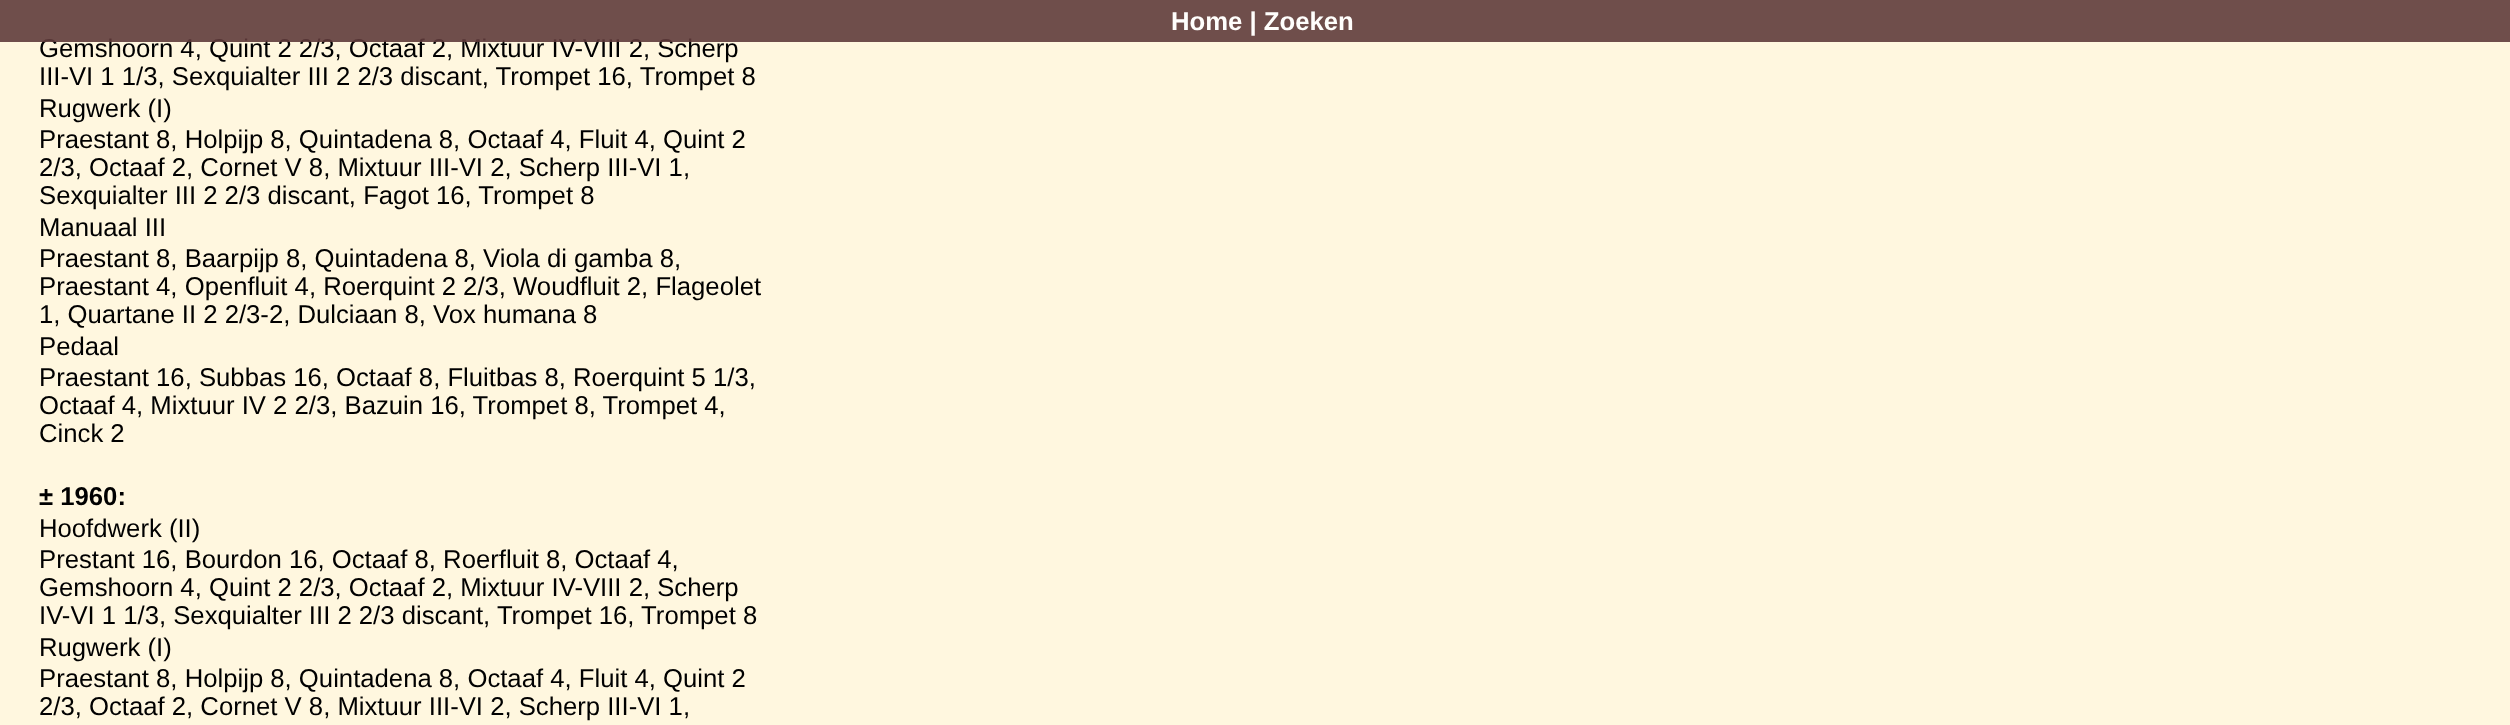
(async () => {
const canvas = document.querySelector("canvas")
canvas.width = 2510
canvas.height = 725
const c = canvas.getContext("2d")
c.miterLimit = 4
c.fontKerning = "normal"
function T(s,x,y){c.fillText(s,x,y)}
function R(x,y,w,h){c.fillRect(x,y,w,h)}
c.fillStyle="#fff7df"
R(0,0,2510,725)
c.font="25.7px Liberation Sans"
c.fillStyle="#000"
T("Gemshoorn 4, Quint 2 2/3, Octaaf 2, Mixtuur IV-VIII 2, Scherp",39,57)
c.fillStyle="#5f3b3be6"
R(0,0,2510,42)
c.font="bold 25.7px Liberation Sans"
c.fillStyle="#fffefc"
T("Home | Zoeken",1171,30)
c.font="25.7px Liberation Sans"
c.fillStyle="#000"
T("III-VI 1 1/3, Sexquialter III 2 2/3 discant, Trompet 16, Trompet 8",39,85)
T("Rugwerk (I)",39,117)
T("Praestant 8, Holpijp 8, Quintadena 8, Octaaf 4, Fluit 4, Quint 2",39,148)
T("2/3, Octaaf 2, Cornet V 8, Mixtuur III-VI 2, Scherp III-VI 1,",39,176)
T("Sexquialter III 2 2/3 discant, Fagot 16, Trompet 8",39,204)
T("Manuaal III",39,236)
T("Praestant 8, Baarpijp 8, Quintadena 8, Viola di gamba 8,",39,267)
T("Praestant 4, Openfluit 4, Roerquint 2 2/3, Woudfluit 2, Flageolet",39,295)
T("1, Quartane II 2 2/3-2, Dulciaan 8, Vox humana 8",39,323)
T("Pedaal",39,355)
T("Praestant 16, Subbas 16, Octaaf 8, Fluitbas 8, Roerquint 5 1/3,",39,386)
T("Octaaf 4, Mixtuur IV 2 2/3, Bazuin 16, Trompet 8, Trompet 4,",39,414)
T("Cinck 2",39,442)
c.font="bold 25.7px Liberation Sans"
T("± 1960:",39,505)
c.font="25.7px Liberation Sans"
T("Hoofdwerk (II)",39,537)
T("Prestant 16, Bourdon 16, Octaaf 8, Roerfluit 8, Octaaf 4,",39,568)
T("Gemshoorn 4, Quint 2 2/3, Octaaf 2, Mixtuur IV-VIII 2, Scherp",39,596)
T("IV-VI 1 1/3, Sexquialter III 2 2/3 discant, Trompet 16, Trompet 8",39,624)
T("Rugwerk (I)",39,656)
T("Praestant 8, Holpijp 8, Quintadena 8, Octaaf 4, Fluit 4, Quint 2",39,687)
T("2/3, Octaaf 2, Cornet V 8, Mixtuur III-VI 2, Scherp III-VI 1,",39,715)
})()
